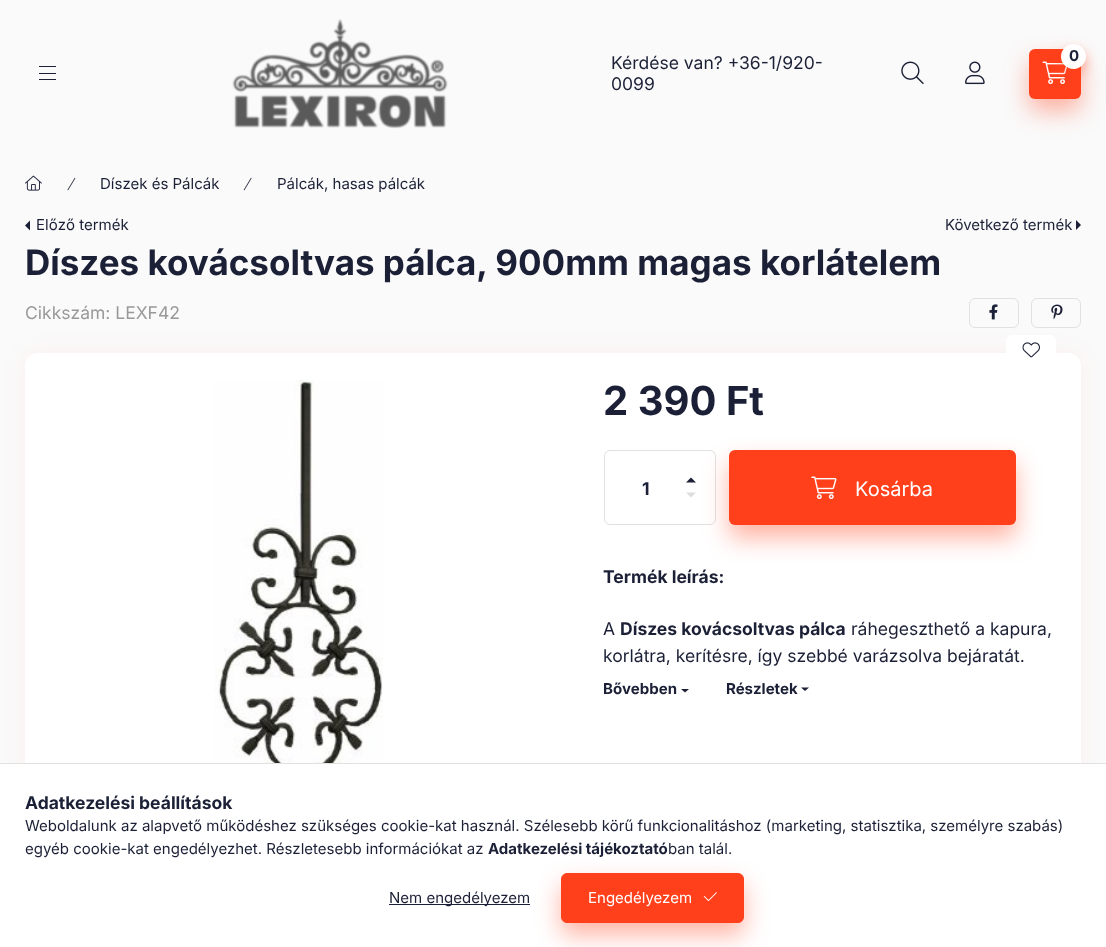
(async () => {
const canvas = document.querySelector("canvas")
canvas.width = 1106
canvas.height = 947
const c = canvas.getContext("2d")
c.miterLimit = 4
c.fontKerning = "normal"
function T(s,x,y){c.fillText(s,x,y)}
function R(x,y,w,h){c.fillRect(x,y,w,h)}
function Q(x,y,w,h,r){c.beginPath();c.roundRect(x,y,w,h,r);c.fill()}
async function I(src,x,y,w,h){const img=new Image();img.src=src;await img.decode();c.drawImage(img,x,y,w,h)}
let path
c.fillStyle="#fafafa"
R(0,0,1106,947)
c.fillStyle="#1b2036"
R(39,66,17,1)
R(39,73,17,1)
R(39,79,17,1)
await I("1.png",232,19,216,110)
c.font="17.5px Inter"
T("Kérdése van? +36-1/920-",611,69)
T("0099",611,90)
c.fillStyle="#ff401b66"
c.filter="blur(12.5px)"
c.beginPath()
c.roundRect(1029,61,52,50,6)
c.fill()
c.filter="none"
c.fillStyle="#ff401b"
Q(1029,49,52,50,6)
await I("2.png",1042,61,25,23)
c.fillStyle="#ff401b66"
c.filter="blur(6px)"
c.beginPath()
c.roundRect(1061,50,25,25,12.5)
c.fill()
c.filter="none"
c.fillStyle="#fff"
c.beginPath()
c.arc(1073.5,56.5,12.5,0,7)
c.fill()
c.font="bold 15px Inter"
c.fillStyle="#1b2036"
T("0",1069,61)
await I("3.png",901,61,23,23)
await I("4.png",965,61,20,24)
await I("5.png",25,175,17,16)
await I("6.png",67,177,9,14)
c.font="15px Inter"
T("Díszek és Pálcák",100,189)
await I("7.png",243,177,9,14)
T("Pálcák, hasas pálcák",277,189)
path = new Path2D("M30 230.5v-10l-5 5z")
c.fill(path)
T("Előző termék",36,230)
T("Következő termék",945,230)
path = new Path2D("M1076 230v-10l5 5z")
c.fill(path)
c.font="bold 35px Inter"
T("Díszes kovácsoltvas pálca, 900mm magas korlátelem",25,275)
c.font="17.5px Inter"
c.fillStyle="#999"
T("Cikkszám: LEXF42",25,319)
c.beginPath()
c.roundRect(969.5,298.5,49,29,5.5)
c.strokeStyle="#e1e1e1"
c.stroke()
await I("8.png",989,304,9,16)
c.beginPath()
c.roundRect(1031.5,298.5,49,29,5.5)
c.stroke()
await I("9.png",1051,304,12,16)
c.fillStyle="#ff401b0d"
c.filter="blur(12.5px)"
c.beginPath()
c.roundRect(25,353,1056,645,13)
c.fill()
c.filter="none"
c.fillStyle="#fff"
Q(25,353,1056,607,13)
Q(1006,335,50,30,6)
await I("10.png",1022,342,18,16)
await I("11.png",214,380,169,383)
c.font="bold 40px Inter"
c.fillStyle="#1b2036"
T("2 390 Ft",603,415)
c.beginPath()
c.roundRect(604.5,450.5,111,74,5.5)
c.stroke()
c.font="bold 17.5px Inter"
T("1",642,495)
path = new Path2D("M696 482.5h-10l5-5z")
c.fill(path)
c.fillStyle="#ddd"
path = new Path2D("M686 492.5h10l-5 5z")
c.fill(path)
c.fillStyle="#ff401b66"
c.filter="blur(12.5px)"
c.beginPath()
c.roundRect(729,463,287,75,6)
c.fill()
c.filter="none"
c.fillStyle="#ff401b"
Q(729,450,287,75,6)
await I("12.png",811,476,26,23)
c.font="20px Inter"
c.fillStyle="#fff"
T("Kosárba",855,496)
c.font="bold 17.5px Inter"
c.fillStyle="#1b2036"
T("Termék leírás:",603,583)
c.font="17.5px Inter"
T("A",603,635)
c.font="bold 17.5px Inter"
T("Díszes kovácsoltvas pálca",620,635)
c.font="17.5px Inter"
T("ráhegeszthető a kapura,",851,635)
T("korlátra, kerítésre, így szebbé varázsolva bejáratát.",603,662)
c.font="bold 15px Inter"
T("Bővebben",603,694)
path = new Path2D("M681 689h8l-4 3.5z")
c.fill(path)
T("Részletek",726,694)
path = new Path2D("M801 687.5h8l-4 3.5z")
c.fill(path)
c.fillStyle="#fff"
R(0,764,1106,183)
c.fillStyle="#e1e1e1"
R(0,763,1106,1)
c.font="bold 17.5px Inter"
c.fillStyle="#1b2036"
T("Adatkezelési beállítások",25,809)
c.font="15px Inter"
T("Weboldalunk az alapvető működéshez szükséges cookie-kat használ. Szélesebb körű funkcionalitáshoz (marketing, statisztika, személyre szabás)",25,831)
T("egyéb cookie-kat engedélyezhet. Részletesebb információkat az",25,854)
c.font="bold 15px Inter"
T("Adatkezelési tájékoztató",488,854)
c.font="15px Inter"
T("ban talál.",668,854)
R(389,904,141,1)
T("Nem engedélyezem",389,903)
c.fillStyle="#ff401b66"
c.filter="blur(12.5px)"
c.beginPath()
c.roundRect(561,885,183,50,6)
c.fill()
c.filter="none"
c.fillStyle="#ff401b"
c.beginPath()
c.roundRect(561.5,873.5,182,49,5.5)
c.fill()
c.strokeStyle="#ff401b"
c.stroke()
c.fillStyle="#fff"
T("Engedélyezem",588,903)
await I("13.png",703,892,14,9)
})()
